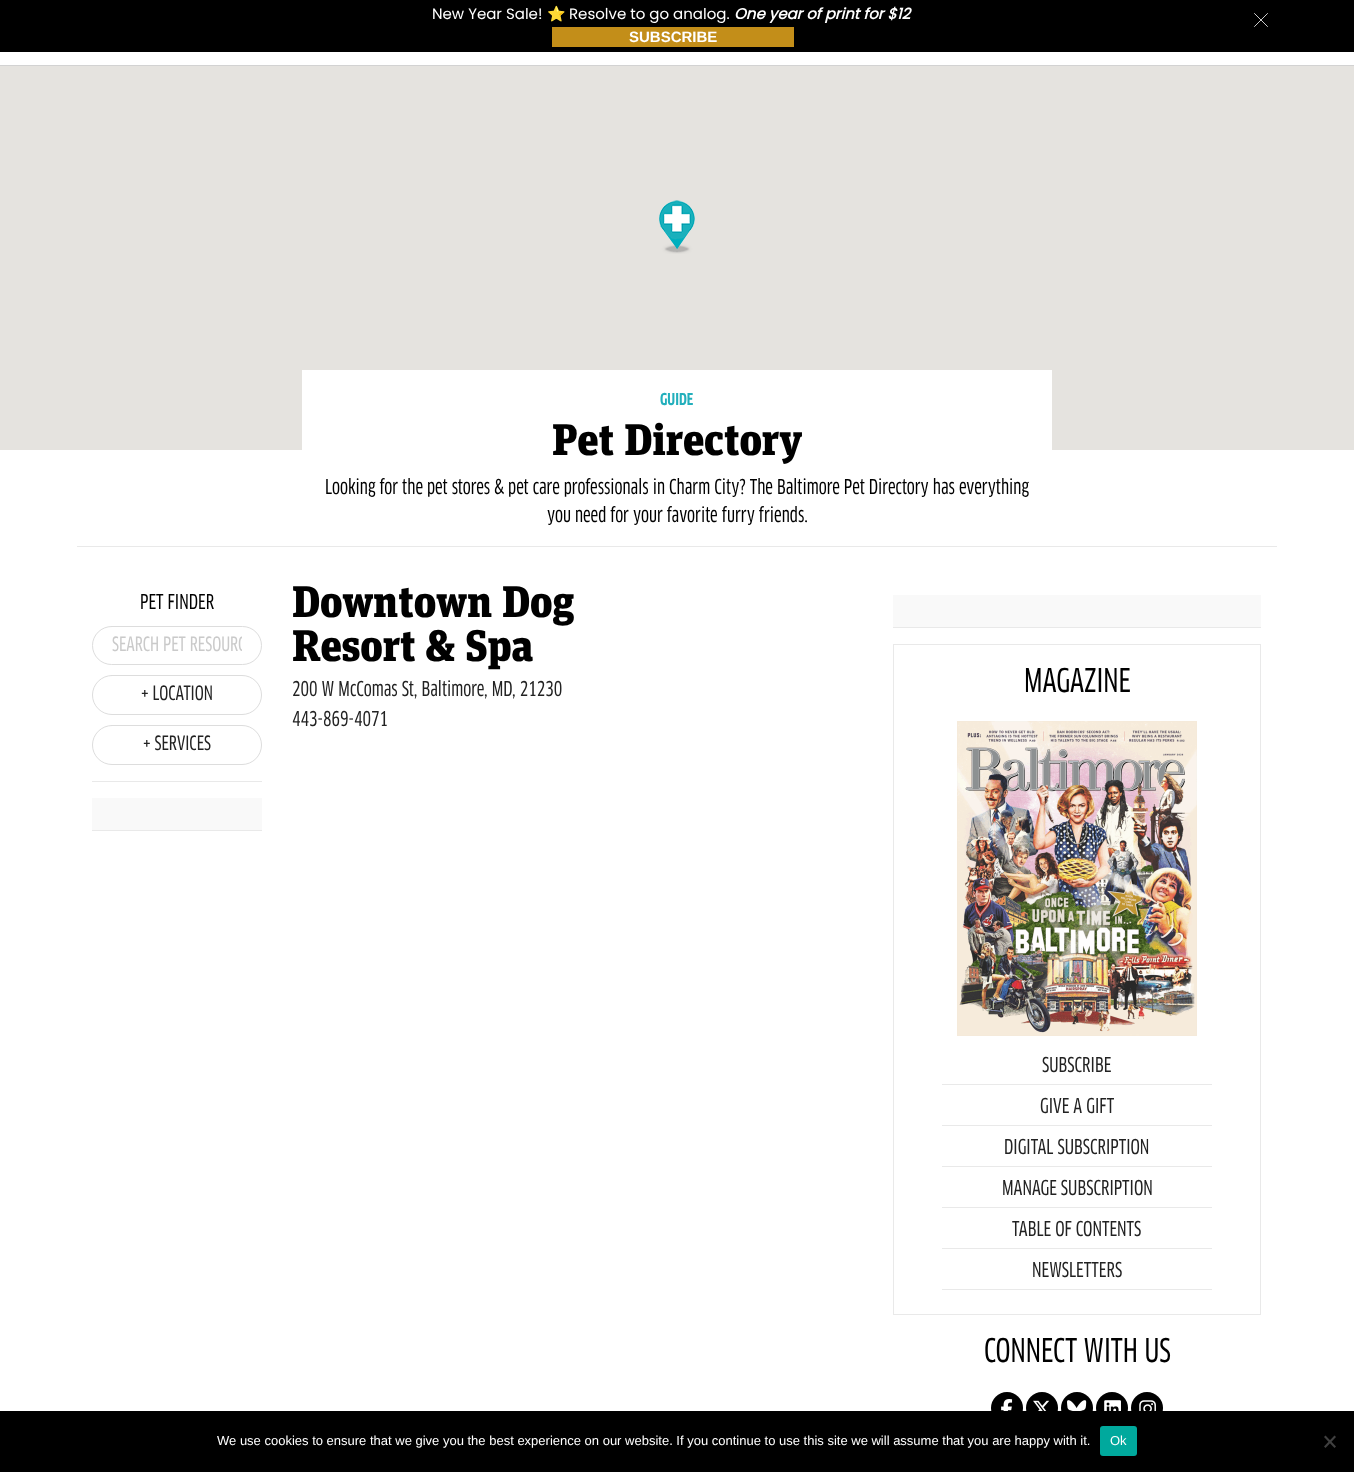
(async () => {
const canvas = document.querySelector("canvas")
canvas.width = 1354
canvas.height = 1472
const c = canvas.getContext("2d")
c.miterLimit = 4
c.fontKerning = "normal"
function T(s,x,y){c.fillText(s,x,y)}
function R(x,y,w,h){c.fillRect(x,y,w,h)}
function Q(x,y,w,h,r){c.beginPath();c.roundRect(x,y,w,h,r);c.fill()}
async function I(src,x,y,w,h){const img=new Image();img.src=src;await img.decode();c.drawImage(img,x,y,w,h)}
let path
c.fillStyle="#fff"
R(0,0,1354,1472)
c.fillStyle="#000"
R(0,0,1354,52)
c.font="15px Poppins"
c.fillStyle="#fff"
T("New Year Sale!",432,19)
c.font="15px Noto Color Emoji"
T("⭐️",547,19)
c.font="15px Poppins"
T("Resolve to go analog.",569,19)
c.font="italic bold 15px Poppins"
T("One year of print for $12",734,19)
path = new Path2D("M1254.5 13.5l13 13m0-13l-13 13")
c.strokeStyle="#fff"
c.lineWidth=0.8
c.lineCap="round"
c.stroke(path)
c.fillStyle="#c38e19"
R(552,27,242,20)
c.font="bold 15px Liberation Sans"
c.fillStyle="#fff"
T("SUBSCRIBE",629,42)
c.fillStyle="#d2d2d2"
R(0,65,1354,1)
c.fillStyle="#e5e3df"
R(0,66,1354,384)
await I("1.png",659,200,36,54)
c.fillStyle="#fff"
R(302,370,750,80)
c.font="bold 16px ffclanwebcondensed"
c.fillStyle="#23afbc"
T("GUIDE",660,405)
c.letterSpacing="-0.4px"
c.font="900 44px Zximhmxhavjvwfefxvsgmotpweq"
c.fillStyle="#000"
T("Pet Directory",552,455)
c.letterSpacing="0px"
c.font="500 20px ffclanwebcondensed"
T("Looking for the pet stores & pet care professionals in Charm City? The Baltimore Pet Directory has everything",325,494)
T("you need for your favorite furry friends.",547,522)
c.fillStyle="#e9e9e9"
R(77,546,1200,1)
c.fillStyle="#000"
T("PET FINDER",140,609)
c.beginPath()
c.roundRect(92.5,626.5,169,38,19)
c.strokeStyle="#ddd"
c.lineWidth=1
c.stroke()
c.save()
c.beginPath()
c.rect(112,636,130,19)
c.clip()
c.font="500 19.25px ffclanwebcondensed"
c.fillStyle="#cacaca"
T("SEARCH PET RESOURC",112,651)
c.restore()
c.beginPath()
c.roundRect(92.5,675.5,169,39,19.5)
c.stroke()
c.font="500 19.25px ffclanwebcondensed"
c.fillStyle="#222"
T("+ LOCATION",141,700)
c.beginPath()
c.roundRect(92.5,725.5,169,39,19.5)
c.stroke()
T("+ SERVICES",143,750)
c.fillStyle="#e9e9e9"
R(92,781,170,1)
c.fillStyle="#f9f9f9"
R(92,798,170,32)
c.fillStyle="#e9e9e9"
R(92,830,170,1)
c.letterSpacing="-0.4px"
c.font="900 44px Zximhmxhavjvwfefxvsgmotpweq"
c.fillStyle="#000"
T("Downtown Dog",292,617)
T("Resort & Spa",292,661)
c.letterSpacing="0px"
c.font="500 20px ffclanwebcondensed"
c.fillStyle="#222"
T("200 W McComas St, Baltimore, MD, 21230",292,696)
T("443-869-4071",292,726)
c.fillStyle="#f9f9f9"
R(893,595,368,32)
c.fillStyle="#e9e9e9"
R(893,627,368,1)
c.strokeStyle="#e9e9e9"
c.strokeRect(893.5,644.5,367,670)
c.font="500 32px ffclanwebcondensed"
c.fillStyle="#000"
T("MAGAZINE",1024,692)
await I("2.png",957,721,240,315)
c.fillStyle="#e9e9e9"
R(942,1084,270,1)
c.font="500 20px ffclanwebcondensed"
c.fillStyle="#222"
T("SUBSCRIBE",1042,1072)
c.fillStyle="#e9e9e9"
R(942,1125,270,1)
c.fillStyle="#222"
T("GIVE A GIFT",1040,1113)
c.fillStyle="#e9e9e9"
R(942,1166,270,1)
c.fillStyle="#222"
T("DIGITAL SUBSCRIPTION",1004,1154)
c.fillStyle="#e9e9e9"
R(942,1207,270,1)
c.fillStyle="#222"
T("MANAGE SUBSCRIPTION",1002,1195)
c.fillStyle="#e9e9e9"
R(942,1248,270,1)
c.fillStyle="#222"
T("TABLE OF CONTENTS",1012,1236)
c.fillStyle="#e9e9e9"
R(942,1289,270,1)
c.fillStyle="#222"
T("NEWSLETTERS",1032,1277)
c.font="500 32px ffclanwebcondensed"
c.fillStyle="#000"
T("CONNECT WITH US",984,1362)
c.beginPath()
c.arc(1007,1408,16,0,7)
c.fill()
await I("3.png",1001,1399,12,12)
c.beginPath()
c.arc(1042,1408,16,0,7)
c.fill()
await I("4.png",1033,1400,17,11)
c.beginPath()
c.arc(1077,1408,16,0,7)
c.fill()
await I("5.png",1067,1400,20,11)
c.beginPath()
c.arc(1112,1408,16,0,7)
c.fill()
await I("6.png",1104,1400,17,11)
c.beginPath()
c.arc(1147,1408,16,0,7)
c.fill()
await I("7.png",1139,1400,17,11)
R(0,1411,1354,61)
c.font="13px Liberation Sans"
c.fillStyle="#fff"
T("We use cookies to ensure that we give you the best experience on our website. If you continue to use this site we will assume that you are happy with it.",217,1445)
c.fillStyle="#00a99d"
Q(1100,1426,37,30,3)
c.fillStyle="#fff"
T("Ok",1110,1445)
c.fillStyle="#404040"
path = new Path2D("M1334.5 1435.5l1.5 1.5l-10.5 11l-1.5-1.5z")
c.fill(path)
path = new Path2D("M1324 1437l1.5-1.5l10.5 11l-1.5 1.5z")
c.fill(path)
})()
